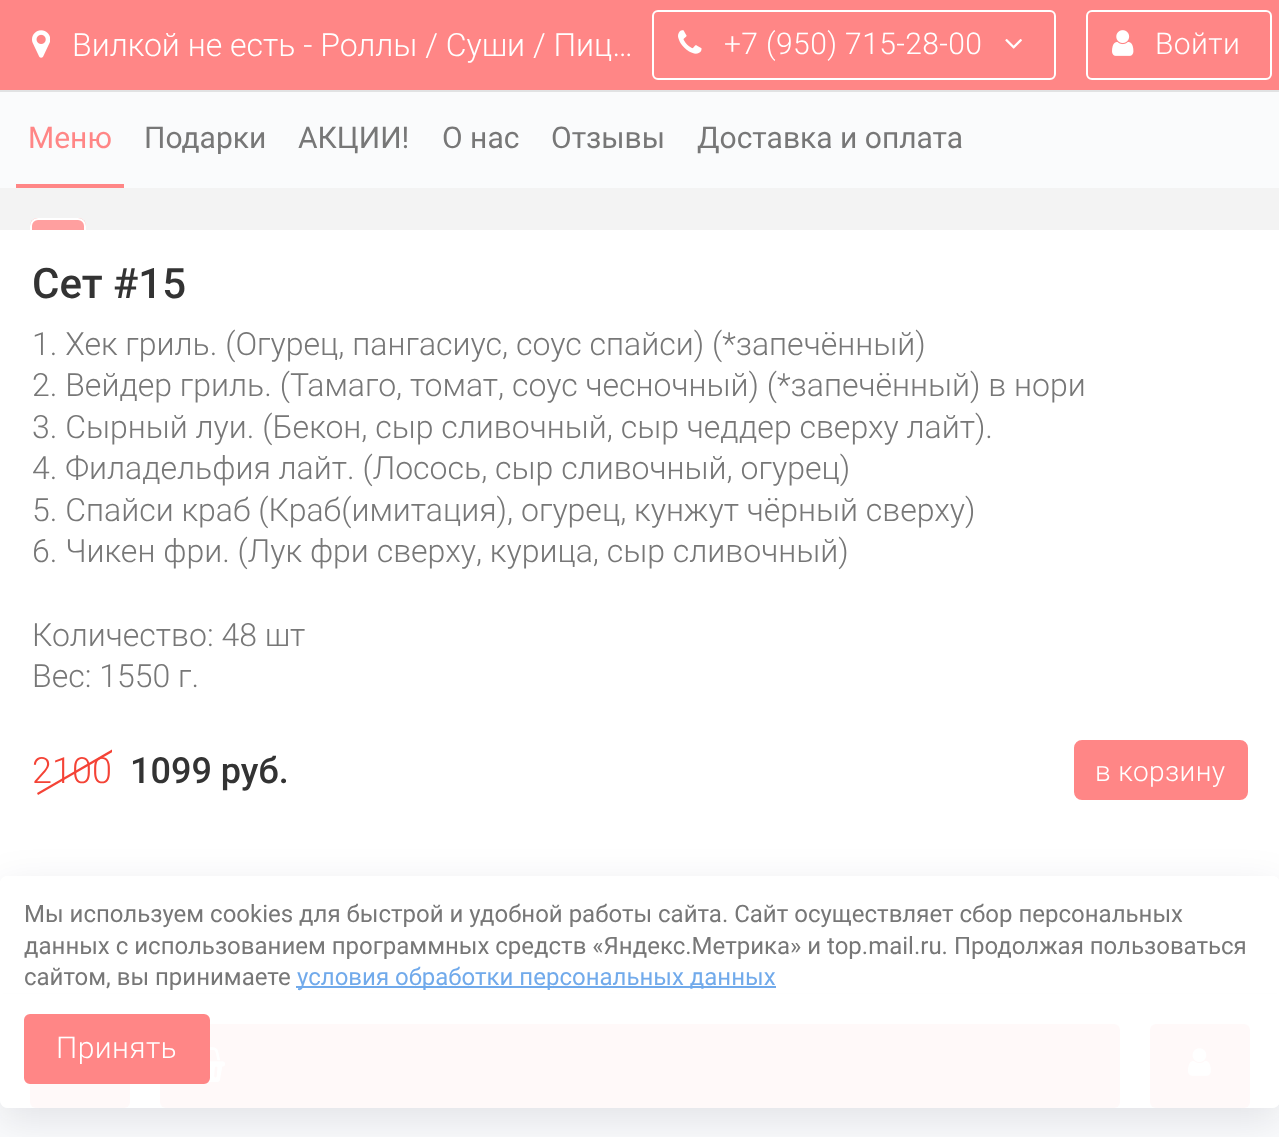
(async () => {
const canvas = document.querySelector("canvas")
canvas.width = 1279
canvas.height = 1137
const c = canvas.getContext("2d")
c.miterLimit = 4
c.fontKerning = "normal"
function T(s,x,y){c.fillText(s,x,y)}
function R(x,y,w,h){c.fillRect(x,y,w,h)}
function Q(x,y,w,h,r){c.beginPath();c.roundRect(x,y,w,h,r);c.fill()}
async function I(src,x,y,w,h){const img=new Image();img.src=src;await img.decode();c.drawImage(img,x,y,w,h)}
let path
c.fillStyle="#fff"
R(0,0,1279,1137)
c.fillStyle="#e1e2e3"
R(0,90,1279,2)
c.fillStyle="#ff8686"
R(0,0,1279,90)
await I("1.png",32,30,18,28)
c.font="300 32px Roboto"
c.fillStyle="#fff"
T("Вилкой не есть - Роллы / Суши / Пиц…",72,56)
c.beginPath()
c.roundRect(653,11,402,68,5)
c.strokeStyle="#fff"
c.lineWidth=2
c.stroke()
await I("2.png",678,30,24,24)
c.letterSpacing="0.4px"
c.font="300 30px Roboto"
T("+7 (950) 715-28-00",724,54)
await I("3.png",1005,39,17,10)
c.beginPath()
c.roundRect(1087,11,184,68,5)
c.stroke()
await I("4.png",1112,30,22,26)
T("Войти",1155,54)
c.fillStyle="#fafbfc"
R(0,92,1279,96)
c.fillStyle="#ff8686"
R(16,184,108,4)
c.letterSpacing="0px"
c.font="30px Roboto"
T("Меню",28,148)
c.fillStyle="#777"
T("Подарки",144,148)
T("АКЦИИ!",298,148)
T("О нас",442,148)
T("Отзывы",551,148)
T("Доставка и оплата",697,148)
c.fillStyle="#f3f3f3"
R(0,188,1279,42)
c.fillStyle="#ff9f9f"
c.beginPath()
c.roundRect(30,218,56,12,[8,8,0,0])
c.fill()
c.font="500 42px Roboto"
c.fillStyle="#333"
T("Сет #15",32,298)
c.save()
c.beginPath()
c.rect(0,188,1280,42)
c.clip()
c.beginPath()
c.roundRect(31,219,54,54,7)
c.stroke()
c.restore()
c.font="300 32px Roboto"
c.fillStyle="#777"
T("1. Хек гриль. (Огурец, пангасиус, соус спайси) (*запечённый)",32,355)
T("2. Вейдер гриль. (Тамаго, томат, соус чесночный) (*запечённый) в нори",32,396)
T("3. Сырный луи. (Бекон, сыр сливочный, сыр чеддер сверху лайт).",32,438)
T("4. Филадельфия лайт. (Лосось, сыр сливочный, огурец)",32,479)
T("5. Спайси краб (Краб(имитация), огурец, кунжут чёрный сверху)",32,521)
T("6. Чикен фри. (Лук фри сверху, курица, сыр сливочный)",32,562)
T("Количество: 48 шт",32,646)
T("Вес: 1550 г.",32,687)
c.save()
c.beginPath()
c.rect(32,740,80,60)
c.clip()
c.fillStyle="#f44336"
path = new Path2D("M37 793l76-44l1 2l-76 44z")
c.fill(path)
c.restore()
c.font="300 36px Roboto"
c.fillStyle="#f44336"
T("2100",32,783)
c.font="500 36px Roboto"
c.fillStyle="#333"
T("1099 руб.",130,783)
c.fillStyle="#ff8686"
c.beginPath()
c.roundRect(1075,741,172,58,7)
c.fill()
c.strokeStyle="#ff8686"
c.stroke()
c.letterSpacing="0.4px"
c.font="300 28px Roboto"
c.fillStyle="#fff"
T("в корзину",1095,781)
c.fillStyle="#0000001a"
c.filter="blur(2px)"
c.beginPath()
c.rect(0,992,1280,144)
c.fill()
c.filter="none"
c.fillStyle="#fafbfc"
R(0,994,1279,143)
c.fillStyle="#ff8686"
Q(30,1024,100,84,6)
Q(160,1024,960,84,6)
await I("5.png",208,1047,18,35)
Q(1150,1024,100,84,6)
await I("6.png",1188,1048,23,28)
c.save()
path = new Path2D("M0 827h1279v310h-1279zm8 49h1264c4.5 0 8 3.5 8 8v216c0 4.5-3.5 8-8 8h-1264c-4.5 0-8-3.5-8-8v-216c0-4.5 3.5-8 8-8z")
c.clip(path,"evenodd")
c.fillStyle="#0605321a"
c.filter="blur(20px)"
c.beginPath()
c.roundRect(0,888,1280,232,8)
c.fill()
c.filter="none"
c.restore()
c.fillStyle="#fffffff2"
Q(0,876,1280,232,8)
c.letterSpacing="0px"
c.font="24px Roboto"
c.fillStyle="#777"
T("Мы используем cookies для быстрой и удобной работы сайта. Сайт осуществляет сбор персональных",24,922)
T("данных с использованием программных средств «Яндекс.Метрика» и top.mail.ru. Продолжая пользоваться",24,954)
T("сайтом, вы принимаете",24,985)
c.fillStyle="#71aaeb"
R(296,986,480,2)
T("условия обработки персональных данных",297,985)
c.fillStyle="#ff8686"
c.beginPath()
c.roundRect(25,1015,184,68,5)
c.fill()
c.stroke()
c.letterSpacing="0.4px"
c.font="300 30px Roboto"
c.fillStyle="#fff"
T("Принять",56,1058)
})()
